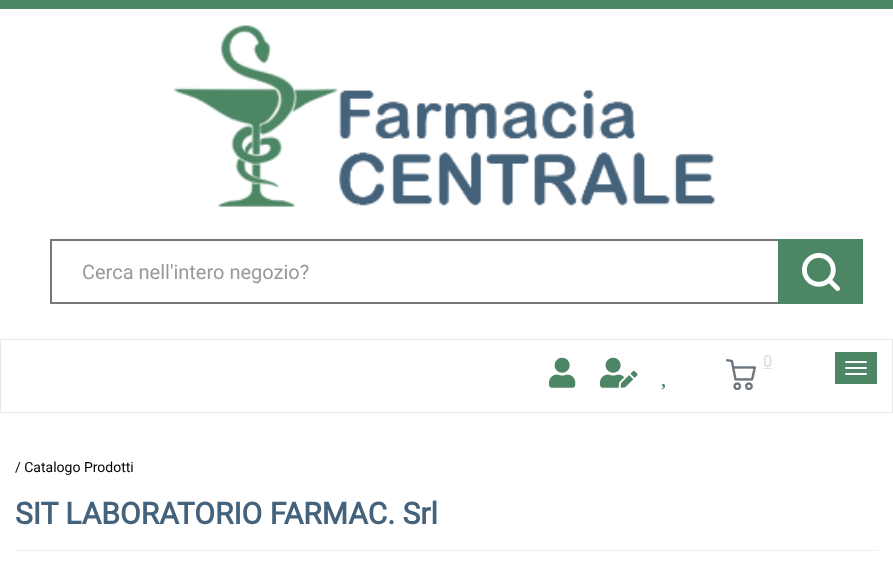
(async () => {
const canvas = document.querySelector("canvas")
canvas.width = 893
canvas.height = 585
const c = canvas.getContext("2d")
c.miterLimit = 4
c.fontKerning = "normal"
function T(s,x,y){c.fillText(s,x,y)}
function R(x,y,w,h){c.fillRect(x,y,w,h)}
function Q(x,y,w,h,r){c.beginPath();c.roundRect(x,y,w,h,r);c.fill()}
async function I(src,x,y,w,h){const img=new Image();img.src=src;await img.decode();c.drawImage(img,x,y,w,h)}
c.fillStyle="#fff"
R(0,0,893,585)
c.fillStyle="#4d8664"
R(0,0,893,9)
await I("1.png",173,25,542,182)
c.strokeStyle="#777"
c.lineWidth=2
c.strokeRect(51,240,747,63)
c.font="20px Roboto"
c.fillStyle="#999"
T("Cerca nell'intero negozio?",82,279)
c.fillStyle="#4d8664"
R(778,239,85,65)
await I("2.png",802,253,38,38)
c.strokeStyle="#e7e7e7"
c.lineWidth=1
c.strokeRect(.5,339.5,892,73)
await I("3.png",549,357,27,31)
await I("4.png",600,357,38,31)
await I("5.png",661,384,4,6)
await I("6.png",726,359,30,31)
c.font="bold 16px Roboto"
c.fillStyle="#dee2e6"
T("0",763,367)
R(763,368,9,1)
c.fillStyle="#4d8664"
R(835,352,42,32)
c.fillStyle="#fff"
Q(845,361,22,2,1)
Q(845,367,22,2,1)
Q(845,373,22,2,1)
c.font="14px Roboto"
c.fillStyle="#000"
T("/ Catalogo Prodotti",15,472)
c.font="bold 30px Roboto"
c.fillStyle="#44627b"
T("SIT LABORATORIO FARMAC. Srl",15,524)
c.fillStyle="#eee"
R(15,550,863,1)
})()
